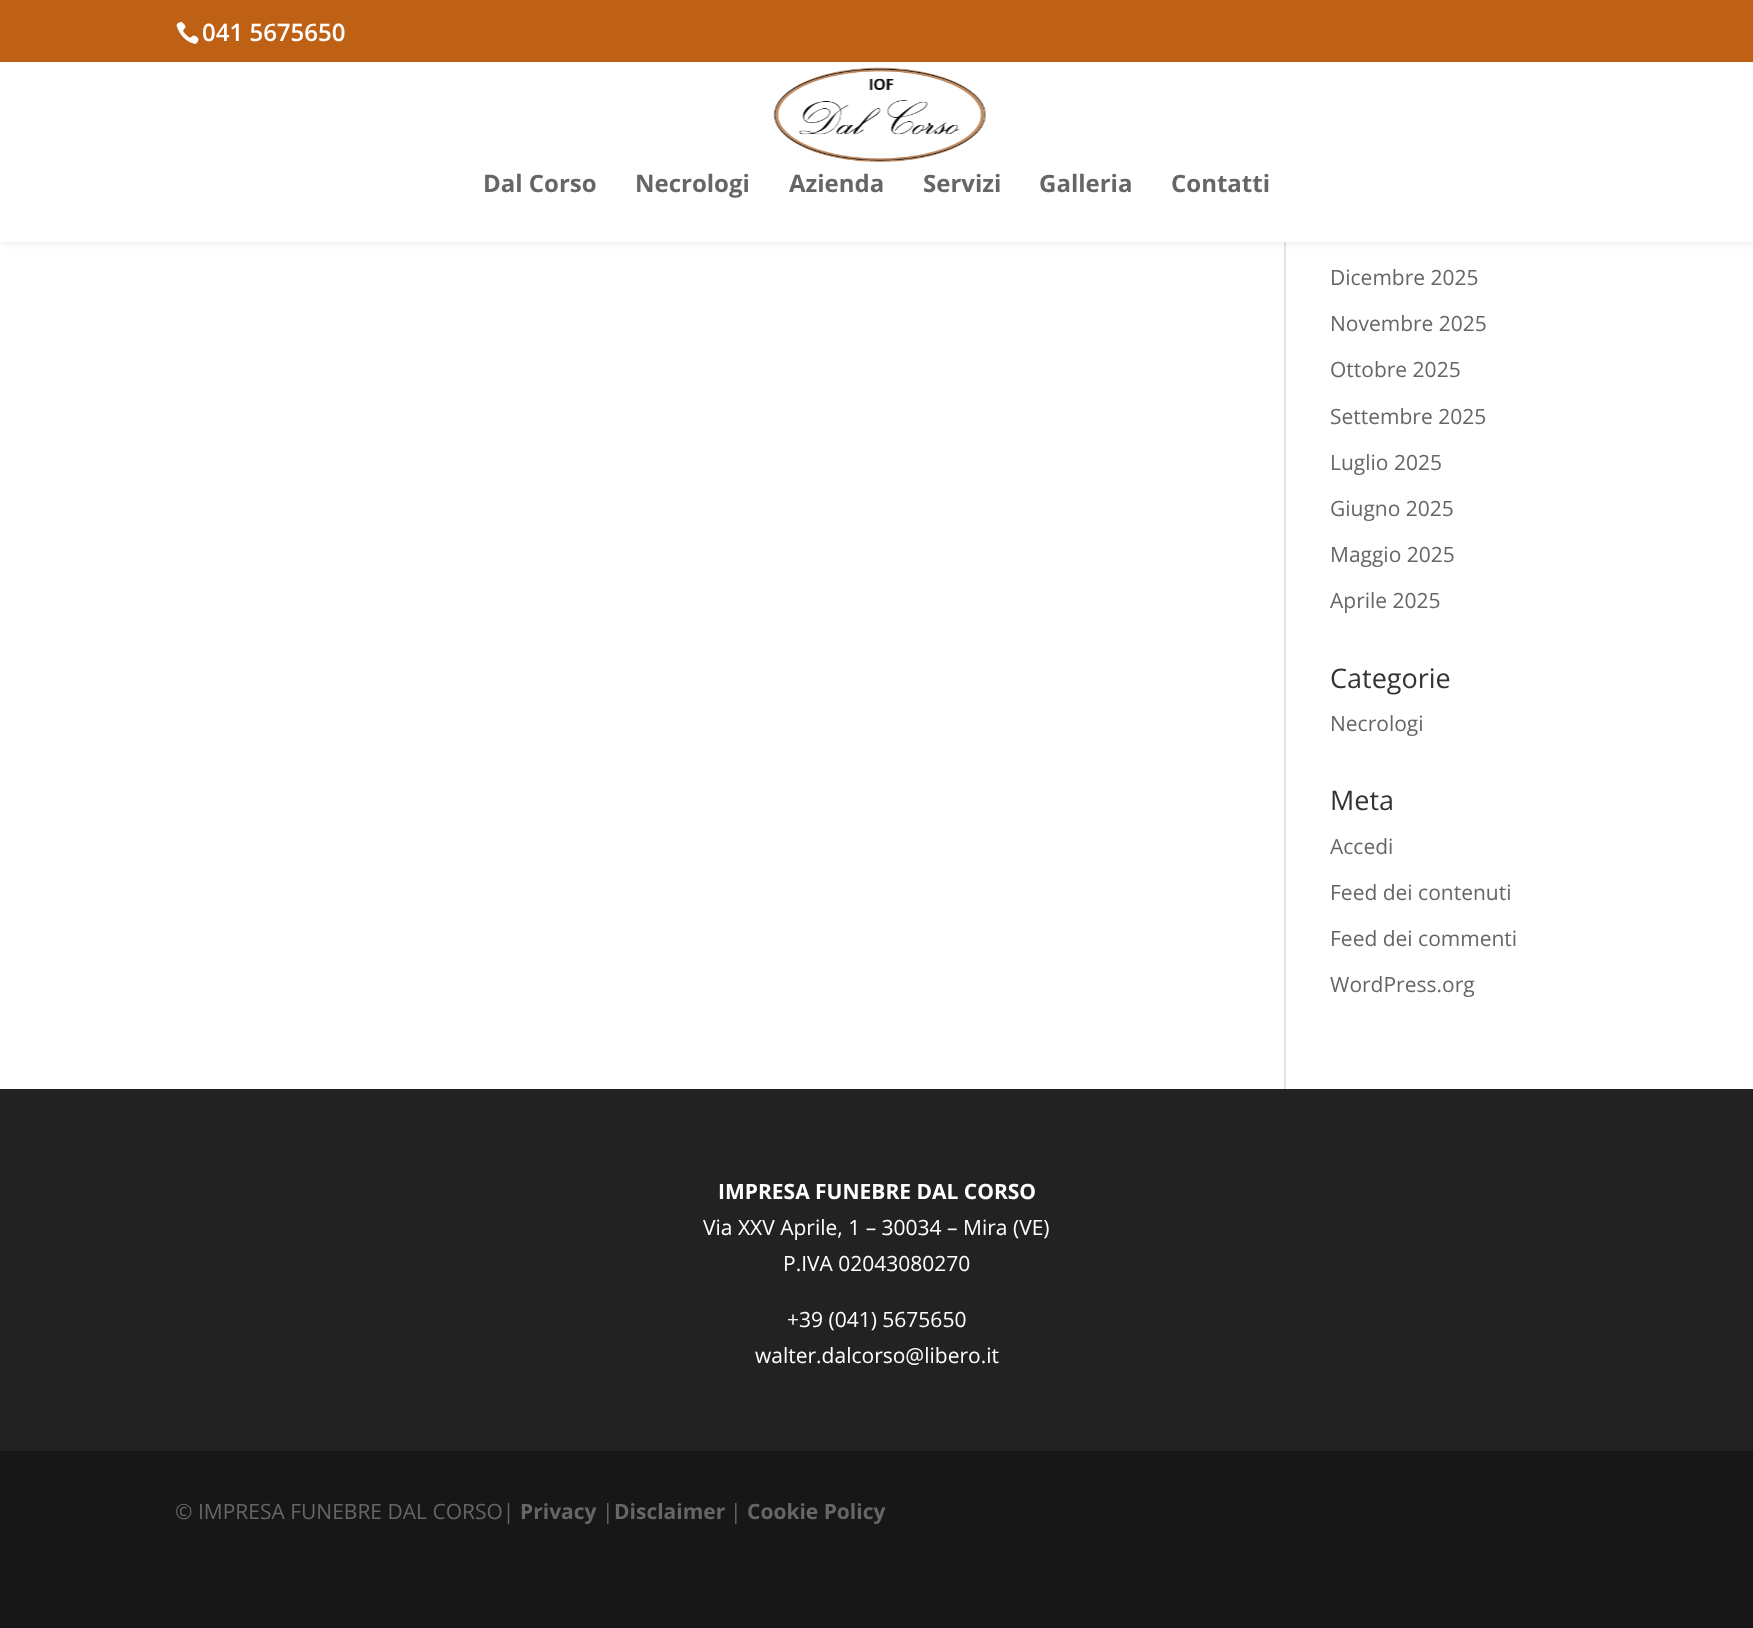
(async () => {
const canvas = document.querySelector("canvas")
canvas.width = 1753
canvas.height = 1628
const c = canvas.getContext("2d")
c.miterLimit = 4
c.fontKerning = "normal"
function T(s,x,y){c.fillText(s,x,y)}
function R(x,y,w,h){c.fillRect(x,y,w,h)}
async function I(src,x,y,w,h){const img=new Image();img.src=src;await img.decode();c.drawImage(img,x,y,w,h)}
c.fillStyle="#fff"
R(0,0,1753,1628)
c.fillStyle="#e2e2e2"
R(1284,242,2,847)
c.fillStyle="#0000001a"
c.filter="blur(5px)"
c.beginPath()
c.rect(0,62,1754,180)
c.fill()
c.filter="none"
c.fillStyle="#bf6115"
R(0,0,1753,62)
await I("1.png",176,22,23,22)
c.font="600 24px Open Sans"
c.fillStyle="#fff"
T("041 5675650",202,41)
R(0,62,1753,180)
await I("2.png",773,67,213,95)
c.font="bold 24px Open Sans"
c.fillStyle="#666"
T("Dal Corso",483,192)
T("Necrologi",635,192)
T("Azienda",789,192)
T("Servizi",923,192)
T("Galleria",1039,192)
T("Contatti",1171,192)
c.font="21px Open Sans"
T("Dicembre 2025",1330,285)
T("Novembre 2025",1330,331)
T("Ottobre 2025",1330,377)
T("Settembre 2025",1330,424)
T("Luglio 2025",1330,470)
T("Giugno 2025",1330,516)
T("Maggio 2025",1330,562)
T("Aprile 2025",1330,608)
c.font="27px Open Sans"
c.fillStyle="#333"
T("Categorie",1330,688)
c.font="21px Open Sans"
c.fillStyle="#666"
T("Necrologi",1330,731)
c.font="27px Open Sans"
c.fillStyle="#333"
T("Meta",1330,810)
c.font="21px Open Sans"
c.fillStyle="#666"
T("Accedi",1330,854)
T("Feed dei contenuti",1330,900)
T("Feed dei commenti",1330,946)
T("WordPress.org",1330,992)
c.fillStyle="#222"
R(0,1089,1753,362)
c.font="bold 21px Open Sans"
c.fillStyle="#fff"
T("IMPRESA FUNEBRE DAL CORSO",718,1199)
c.font="21px Open Sans"
T("Via XXV Aprile, 1 – 30034 – Mira (VE)",703,1235)
T("P.IVA 02043080270",783,1271)
T("+39 (041) 5675650",787,1327)
T("walter.dalcorso@libero.it",755,1363)
c.fillStyle="#171717"
R(0,1451,1753,177)
c.fillStyle="#666"
T("© IMPRESA FUNEBRE DAL CORSO|",175,1519)
c.font="bold 21px Open Sans"
T("Privacy",520,1519)
c.font="21px Open Sans"
T("|",602,1519)
c.font="bold 21px Open Sans"
T("Disclaimer",614,1519)
c.font="21px Open Sans"
T("|",730,1519)
c.font="bold 21px Open Sans"
T("Cookie Policy",747,1519)
})()
